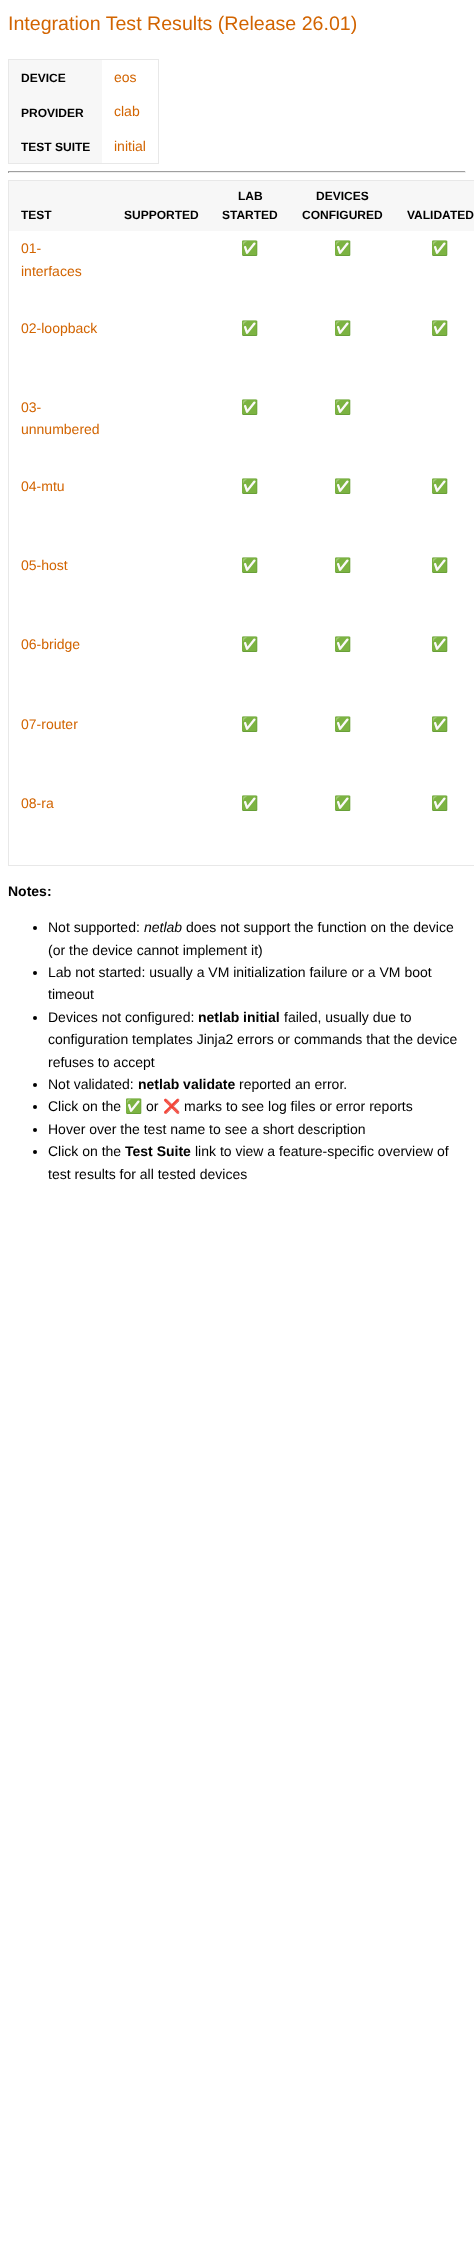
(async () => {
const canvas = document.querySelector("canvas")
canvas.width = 474
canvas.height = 2247
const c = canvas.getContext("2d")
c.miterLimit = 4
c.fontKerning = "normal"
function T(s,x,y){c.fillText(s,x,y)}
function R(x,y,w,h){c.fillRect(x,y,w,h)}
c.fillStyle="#fff"
R(0,0,474,2247)
c.font="19.6px Liberation Sans"
c.fillStyle="#d26400"
T("Integration Test Results (Release 26.01)",8,30)
c.fillStyle="#e8e8e8"
R(8,59,151,1)
R(158,59,1,105)
R(8,163,151,1)
R(8,59,1,105)
c.fillStyle="#f7f7f7"
R(9,60,93,103)
c.font="bold 12px Liberation Sans"
c.fillStyle="#000"
T("DEVICE",21,82)
c.font="14px Liberation Sans"
c.fillStyle="#d26400"
T("eos",114,82)
c.font="bold 12px Liberation Sans"
c.fillStyle="#000"
T("PROVIDER",21,117)
c.font="14px Liberation Sans"
c.fillStyle="#d26400"
T("clab",114,116)
c.font="bold 12px Liberation Sans"
c.fillStyle="#000"
T("TEST SUITE",21,151)
c.font="14px Liberation Sans"
c.fillStyle="#d26400"
T("initial",114,151)
c.fillStyle="#9f9f9f"
R(8,171,458,1)
c.fillStyle="#eee"
R(465,171,1,2)
R(8,172,458,1)
c.fillStyle="#9f9f9f"
R(8,171,1,2)
c.fillStyle="#e8e8e8"
R(8,180,466,1)
R(8,865,466,1)
R(8,180,1,686)
c.fillStyle="#f7f7f7"
R(9,181,465,50)
c.font="bold 12px Liberation Sans"
c.fillStyle="#000"
T("TEST",21,219)
T("SUPPORTED",124,219)
T("LAB",238,200)
T("STARTED",222,219)
T("DEVICES",316,200)
T("CONFIGURED",302,219)
T("VALIDATED",407,219)
c.font="14px Liberation Sans"
c.fillStyle="#d26400"
T("01-",21,253)
T("interfaces",21,276)
c.font="14px Noto Color Emoji"
T("✅",241,253)
T("✅",334,253)
T("✅",431,253)
c.font="14px Liberation Sans"
T("02-loopback",21,333)
c.font="14px Noto Color Emoji"
T("✅",241,333)
T("✅",334,333)
T("✅",431,333)
c.font="14px Liberation Sans"
T("03-",21,412)
T("unnumbered",21,434)
c.font="14px Noto Color Emoji"
T("✅",241,412)
T("✅",334,412)
c.font="14px Liberation Sans"
T("04-mtu",21,491)
c.font="14px Noto Color Emoji"
T("✅",241,491)
T("✅",334,491)
T("✅",431,491)
c.font="14px Liberation Sans"
T("05-host",21,570)
c.font="14px Noto Color Emoji"
T("✅",241,570)
T("✅",334,570)
T("✅",431,570)
c.font="14px Liberation Sans"
T("06-bridge",21,649)
c.font="14px Noto Color Emoji"
T("✅",241,649)
T("✅",334,649)
T("✅",431,649)
c.font="14px Liberation Sans"
T("07-router",21,729)
c.font="14px Noto Color Emoji"
T("✅",241,729)
T("✅",334,729)
T("✅",431,729)
c.font="14px Liberation Sans"
T("08-ra",21,808)
c.font="14px Noto Color Emoji"
T("✅",241,808)
T("✅",334,808)
T("✅",431,808)
c.font="bold 14px Liberation Sans"
c.fillStyle="#000"
T("Notes:",8,896)
c.beginPath()
c.arc(35,928,2,0,7)
c.fill()
c.font="14px Liberation Sans"
T("Not supported:",48,932)
c.font="italic 14px Liberation Sans"
T("netlab",144,932)
c.font="14px Liberation Sans"
T("does not support the function on the device",186,932)
T("(or the device cannot implement it)",48,955)
c.beginPath()
c.arc(35,973,2,0,7)
c.fill()
T("Lab not started: usually a VM initialization failure or a VM boot",48,977)
T("timeout",48,999)
c.beginPath()
c.arc(35,1018,2,0,7)
c.fill()
T("Devices not configured:",48,1022)
c.font="bold 14px Liberation Sans"
T("netlab initial",198,1022)
c.font="14px Liberation Sans"
T("failed, usually due to",284,1022)
T("configuration templates Jinja2 errors or commands that the device",48,1044)
T("refuses to accept",48,1067)
c.beginPath()
c.arc(35,1085,2,0,7)
c.fill()
T("Not validated:",48,1089)
c.font="bold 14px Liberation Sans"
T("netlab validate",138,1089)
c.font="14px Liberation Sans"
T("reported an error.",239,1089)
c.beginPath()
c.arc(35,1107,2,0,7)
c.fill()
T("Click on the",48,1111)
c.font="14px Noto Color Emoji"
T("✅",125,1111)
c.font="14px Liberation Sans"
T("or",146,1111)
c.font="14px Noto Color Emoji"
T("❌",163,1111)
c.font="14px Liberation Sans"
T("marks to see log files or error reports",184,1111)
c.beginPath()
c.arc(35,1130,2,0,7)
c.fill()
T("Hover over the test name to see a short description",48,1134)
c.beginPath()
c.arc(35,1152,2,0,7)
c.fill()
T("Click on the",48,1156)
c.font="bold 14px Liberation Sans"
T("Test Suite",125,1156)
c.font="14px Liberation Sans"
T("link to view a feature-specific overview of",195,1156)
T("test results for all tested devices",48,1179)
})()
